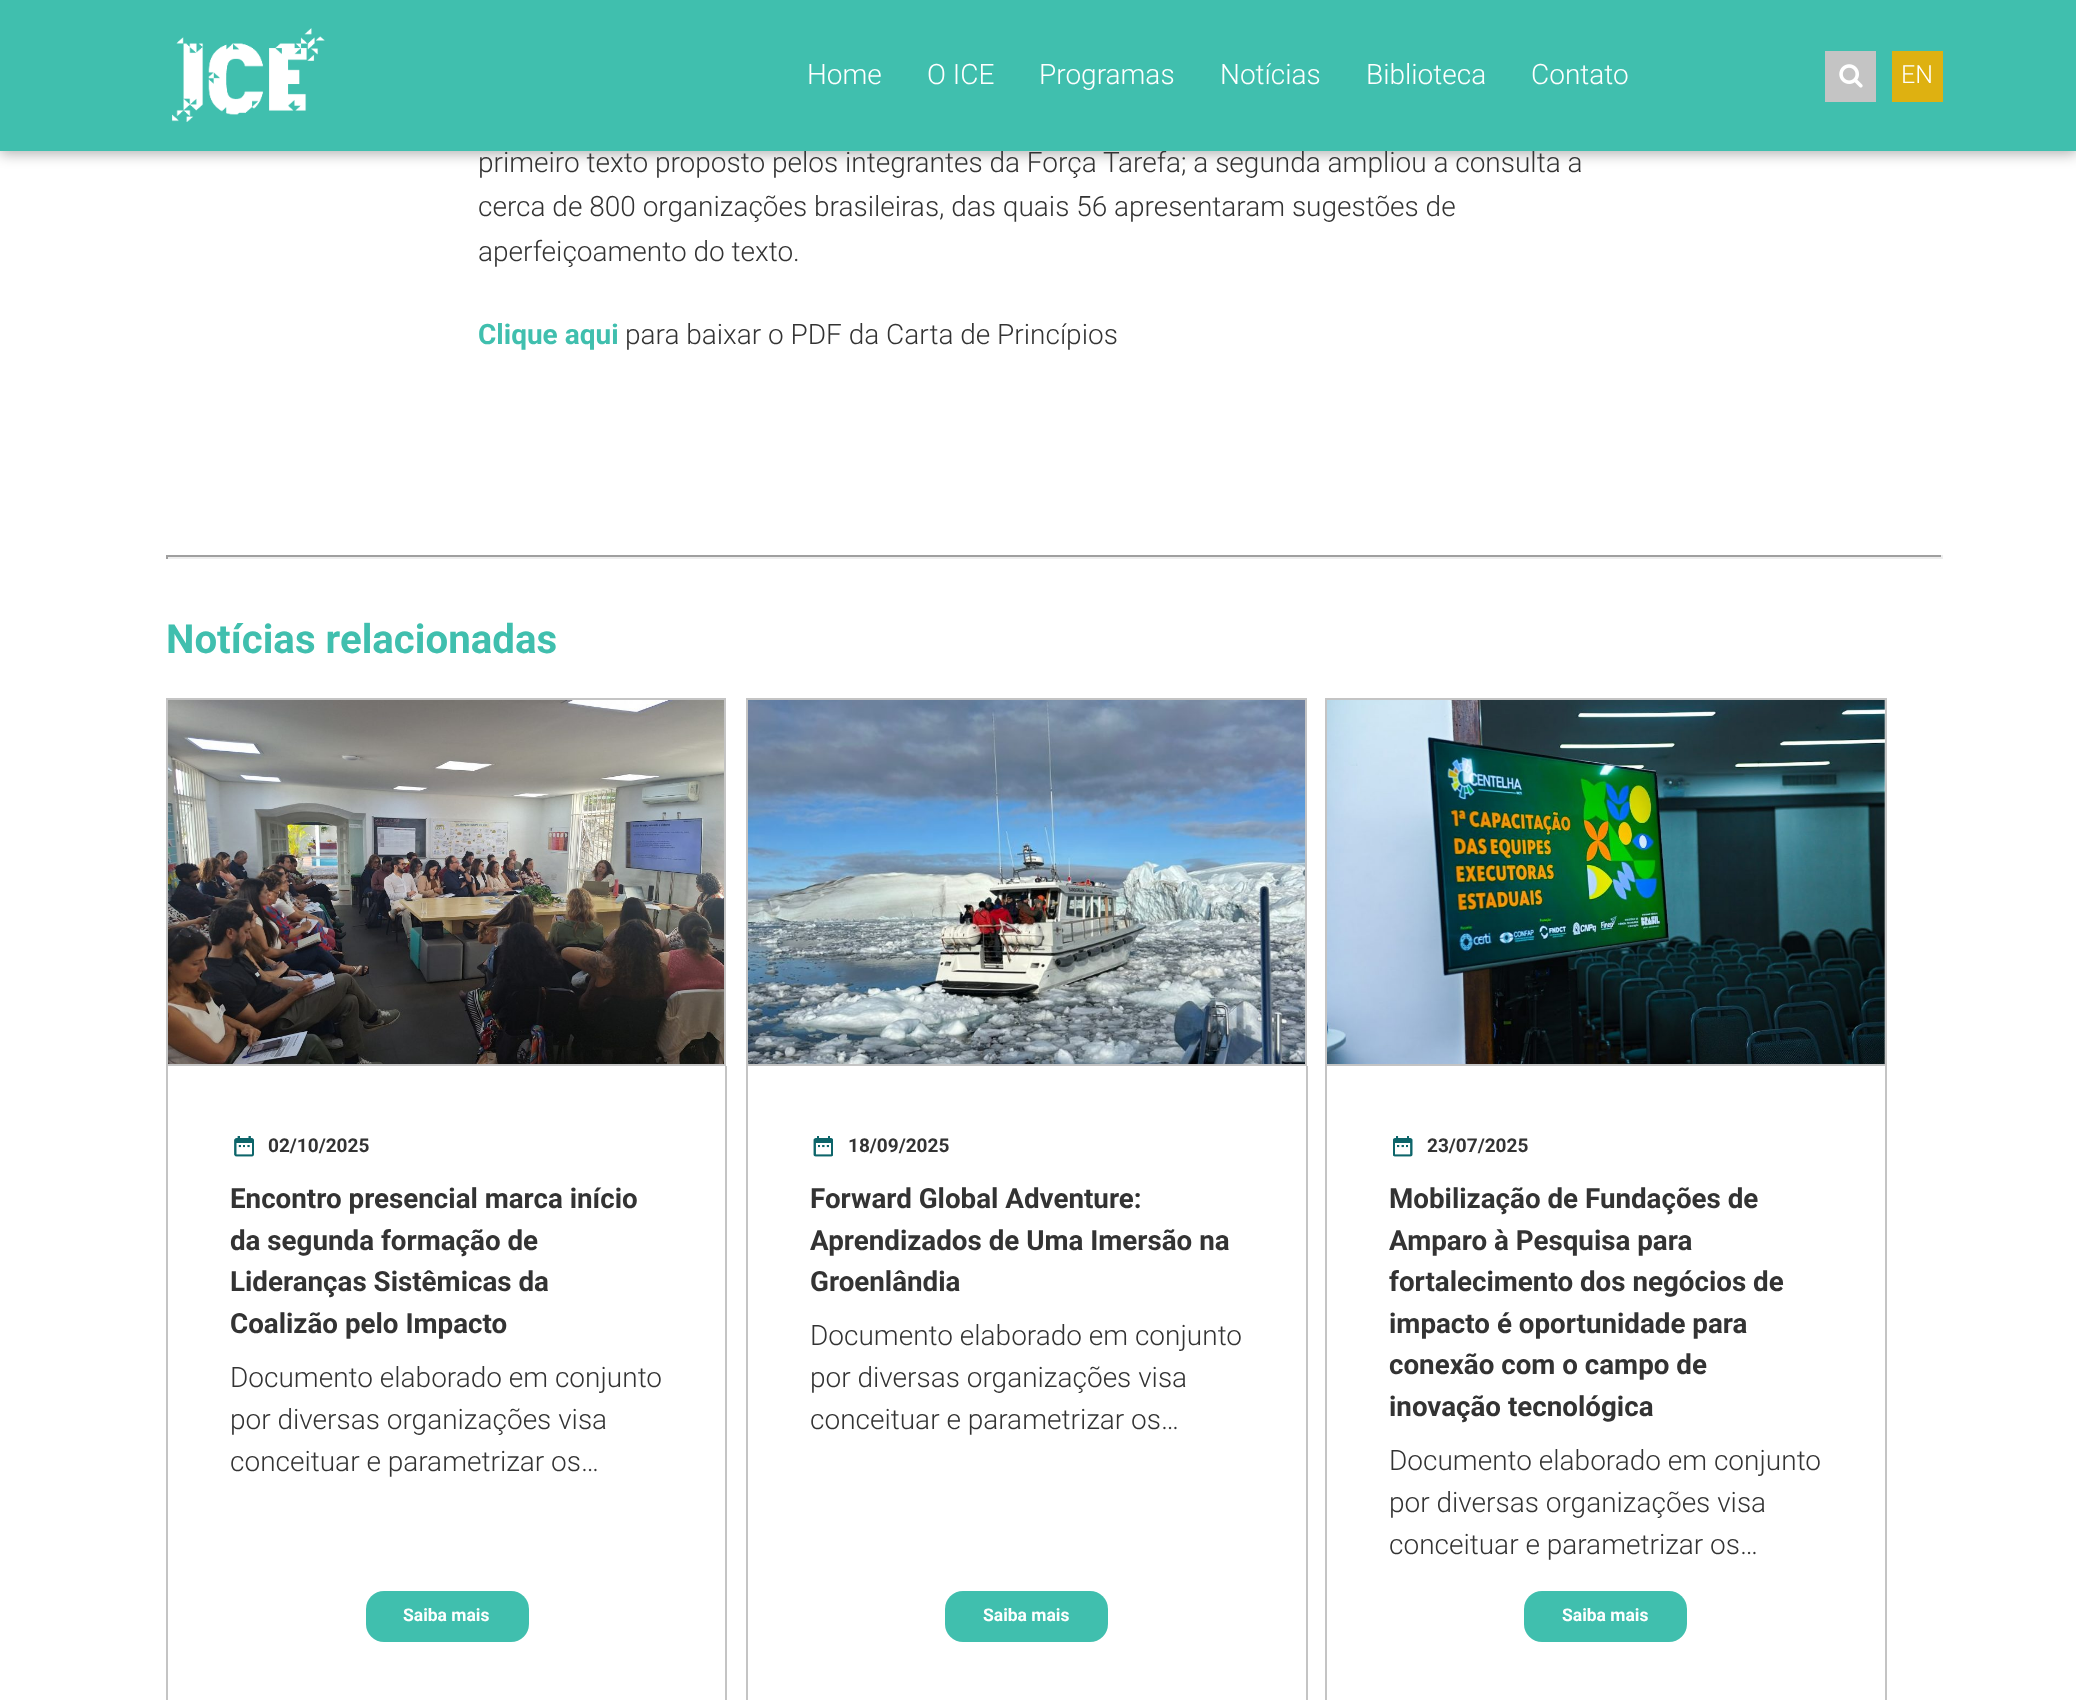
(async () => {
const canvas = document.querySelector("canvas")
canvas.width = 2076
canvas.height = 1700
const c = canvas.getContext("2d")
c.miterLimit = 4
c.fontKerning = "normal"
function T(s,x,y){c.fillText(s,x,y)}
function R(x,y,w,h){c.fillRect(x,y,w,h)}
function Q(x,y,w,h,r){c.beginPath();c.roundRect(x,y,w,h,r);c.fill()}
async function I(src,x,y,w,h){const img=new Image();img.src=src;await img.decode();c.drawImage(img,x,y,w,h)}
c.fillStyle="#fff"
R(0,0,2076,1700)
c.fillStyle="#0000004d"
c.filter="blur(7px)"
c.beginPath()
c.rect(0,4,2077,150)
c.fill()
c.filter="none"
c.font="300 28px Roboto"
c.fillStyle="#333"
T("primeiro texto proposto pelos integrantes da Força Tarefa; a segunda ampliou a consulta a",478,172)
c.fillStyle="#40bfae"
R(0,0,2076,151)
await I("1.png",172,28,153,94)
c.fillStyle="#fff"
T("Home",807,84)
T("O ICE",927,84)
T("Programas",1039,84)
T("Notícias",1220,84)
T("Biblioteca",1366,84)
T("Contato",1531,84)
c.fillStyle="#c4c4c4"
R(1825,51,51,51)
await I("2.png",1839,64,24,24)
c.fillStyle="#deb111"
R(1892,51,51,51)
c.font="300 25px Roboto"
c.fillStyle="#fff"
T("EN",1901,83)
c.font="300 28px Roboto"
c.fillStyle="#333"
T("cerca de 800 organizações brasileiras, das quais 56 apresentaram sugestões de",478,216)
T("aperfeiçoamento do texto.",478,261)
c.font="bold 28px Roboto"
c.fillStyle="#40bfae"
T("Clique aqui",478,344)
c.font="300 28px Roboto"
c.fillStyle="#333"
T("para baixar o PDF da Carta de Princípios",625,344)
c.fillStyle="#9f9f9f"
R(166,555,1777,2)
c.fillStyle="#eee"
R(1941,555,2,4)
R(166,557,1777,2)
c.fillStyle="#9f9f9f"
R(166,555,2,4)
c.font="bold 40.25px Roboto"
c.fillStyle="#40bfae"
T("Notícias relacionadas",166,653)
await I("3.png",168,700,556,364)
c.strokeStyle="#c4c4c4"
c.lineWidth=2
c.strokeRect(167,699,558,366)
c.fillStyle="#c4c4c4"
R(725,1066,2,634)
R(166,1066,2,634)
await I("4.png",234,1136,20,21)
c.font="bold 19px Roboto"
c.fillStyle="#333"
T("02/10/2025",268,1152)
c.font="bold 27.75px Roboto"
T("Encontro presencial marca início",230,1208)
T("da segunda formação de",230,1250)
T("Lideranças Sistêmicas da",230,1291)
T("Coalizão pelo Impacto",230,1333)
c.font="300 28px Roboto"
T("Documento elaborado em conjunto",230,1387)
T("por diversas organizações visa",230,1429)
T("conceituar e parametrizar os…",230,1471)
c.fillStyle="#40bfae"
Q(366,1591,163,51,18)
c.font="bold 17.5px Roboto"
c.fillStyle="#fff"
T("Saiba mais",403,1621)
await I("5.png",748,700,557,364)
c.strokeRect(747,699,559,366)
c.fillStyle="#c4c4c4"
R(1306,1066,2,634)
R(746,1066,2,634)
await I("6.png",813,1136,20,21)
c.font="bold 19px Roboto"
c.fillStyle="#333"
T("18/09/2025",848,1152)
c.font="bold 27.75px Roboto"
T("Forward Global Adventure:",810,1208)
T("Aprendizados de Uma Imersão na",810,1250)
T("Groenlândia",810,1291)
c.font="300 28px Roboto"
T("Documento elaborado em conjunto",810,1345)
T("por diversas organizações visa",810,1387)
T("conceituar e parametrizar os…",810,1429)
c.fillStyle="#40bfae"
Q(945,1591,163,51,18)
c.font="bold 17.5px Roboto"
c.fillStyle="#fff"
T("Saiba mais",983,1621)
await I("7.png",1327,700,558,364)
c.strokeRect(1326,699,560,366)
c.fillStyle="#c4c4c4"
R(1885,1066,2,634)
R(1325,1066,2,634)
await I("8.png",1393,1136,20,21)
c.font="bold 19px Roboto"
c.fillStyle="#333"
T("23/07/2025",1427,1152)
c.font="bold 27.75px Roboto"
T("Mobilização de Fundações de",1389,1208)
T("Amparo à Pesquisa para",1389,1250)
T("fortalecimento dos negócios de",1389,1291)
T("impacto é oportunidade para",1389,1333)
T("conexão com o campo de",1389,1374)
T("inovação tecnológica",1389,1416)
c.font="300 28px Roboto"
T("Documento elaborado em conjunto",1389,1470)
T("por diversas organizações visa",1389,1512)
T("conceituar e parametrizar os…",1389,1554)
c.fillStyle="#40bfae"
Q(1524,1591,163,51,18)
c.font="bold 17.5px Roboto"
c.fillStyle="#fff"
T("Saiba mais",1562,1621)
})()
